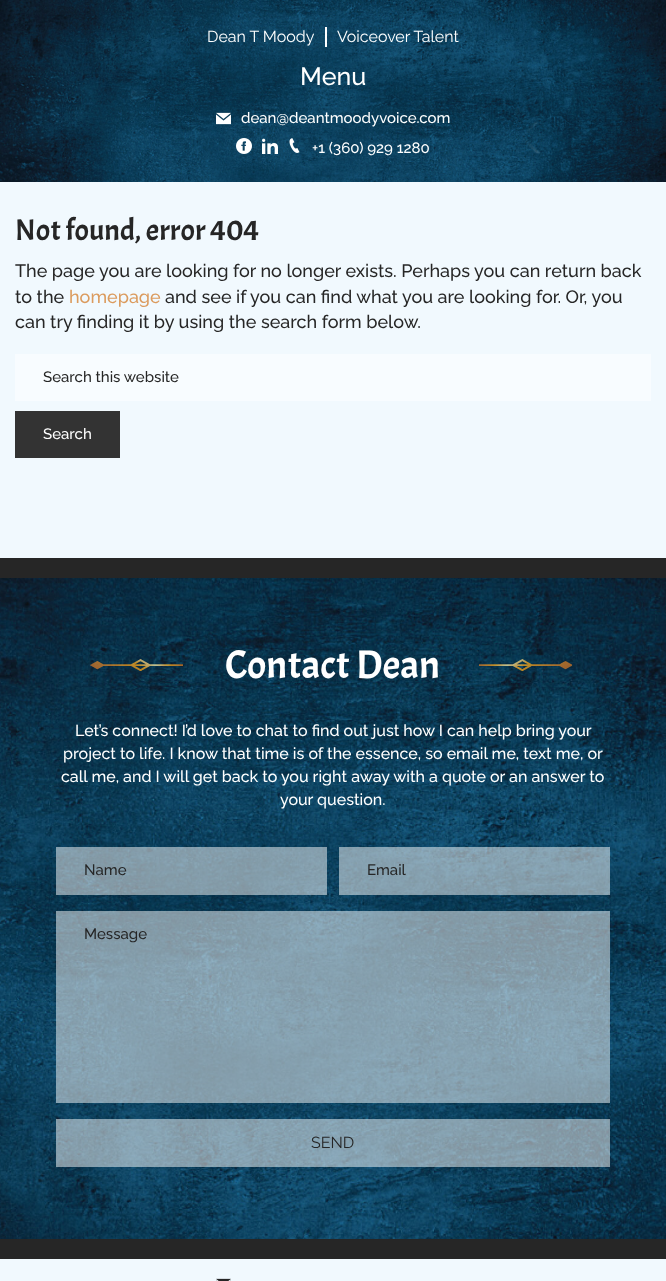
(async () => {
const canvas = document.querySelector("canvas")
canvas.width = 666
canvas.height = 1281
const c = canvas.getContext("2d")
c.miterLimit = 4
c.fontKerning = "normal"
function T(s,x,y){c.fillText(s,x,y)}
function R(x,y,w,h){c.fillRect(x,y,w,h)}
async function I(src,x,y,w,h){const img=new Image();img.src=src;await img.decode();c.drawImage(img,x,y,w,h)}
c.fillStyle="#f1f9fe"
R(0,0,666,1281)
await I("1.png",0,0,666,182)
c.fillStyle="#fff"
R(325,27,2,20)
c.font="16px Raleway"
T("Dean T Moody",207,42)
T("Voiceover Talent",337,42)
c.font="500 25px Raleway"
T("Menu",300,85)
await I("2.png",216,112,15,13)
c.font="500 15px Raleway"
T("dean@deantmoodyvoice.com",241,123)
await I("3.png",236,138,16,16)
await I("4.png",262,138,16,16)
await I("5.png",289,138,11,15)
T("+1 (360) 929 1280",312,153)
c.font="30px Acme"
c.fillStyle="#262626"
T("Not found, error 404",15,240)
c.font="500 18px Raleway"
T("The page you are looking for no longer exists. Perhaps you can return back",15,277)
T("to the",15,303)
c.fillStyle="#db9b5e"
T("homepage",69,303)
c.fillStyle="#262626"
T("and see if you can find what you are looking for. Or, you",165,303)
T("can try finding it by using the search form below.",15,328)
c.fillStyle="#f8fcff"
R(15,354,636,47)
c.font="500 15px Raleway"
c.fillStyle="#262626"
T("Search this website",43,382)
c.fillStyle="#333"
R(15,411,105,47)
c.fillStyle="#fff"
T("Search",43,439)
await I("6.png",0,578,666,661)
c.fillStyle="#262626"
R(0,558,666,20)
await I("7.png",90,659,93,12)
c.font="40px Acme"
c.fillStyle="#fff"
T("Contact Dean",225,678)
await I("8.png",479,659,93,12)
c.font="500 16px Raleway"
T("Let’s connect! I’d love to chat to find out just how I can help bring your",75,736)
T("project to life. I know that time is of the essence, so email me, text me, or",63,759)
T("call me, and I will get back to you right away with a quote or an answer to",61,782)
T("your question.",280,805)
c.fillStyle="#ffffff80"
R(56,847,271,48)
c.font="500 15px Raleway"
c.fillStyle="#262626"
T("Name",84,875)
c.fillStyle="#ffffff80"
R(339,847,271,48)
c.fillStyle="#262626"
T("Email",367,875)
c.fillStyle="#ffffff80"
R(56,911,554,192)
c.fillStyle="#262626"
T("Message",84,939)
c.fillStyle="#ffffff80"
R(56,1119,554,48)
c.font="16px Raleway"
c.fillStyle="#262626"
T("SEND",311,1148)
R(0,1239,666,20)
await I("9.png",216,1278,15,3)
})()
